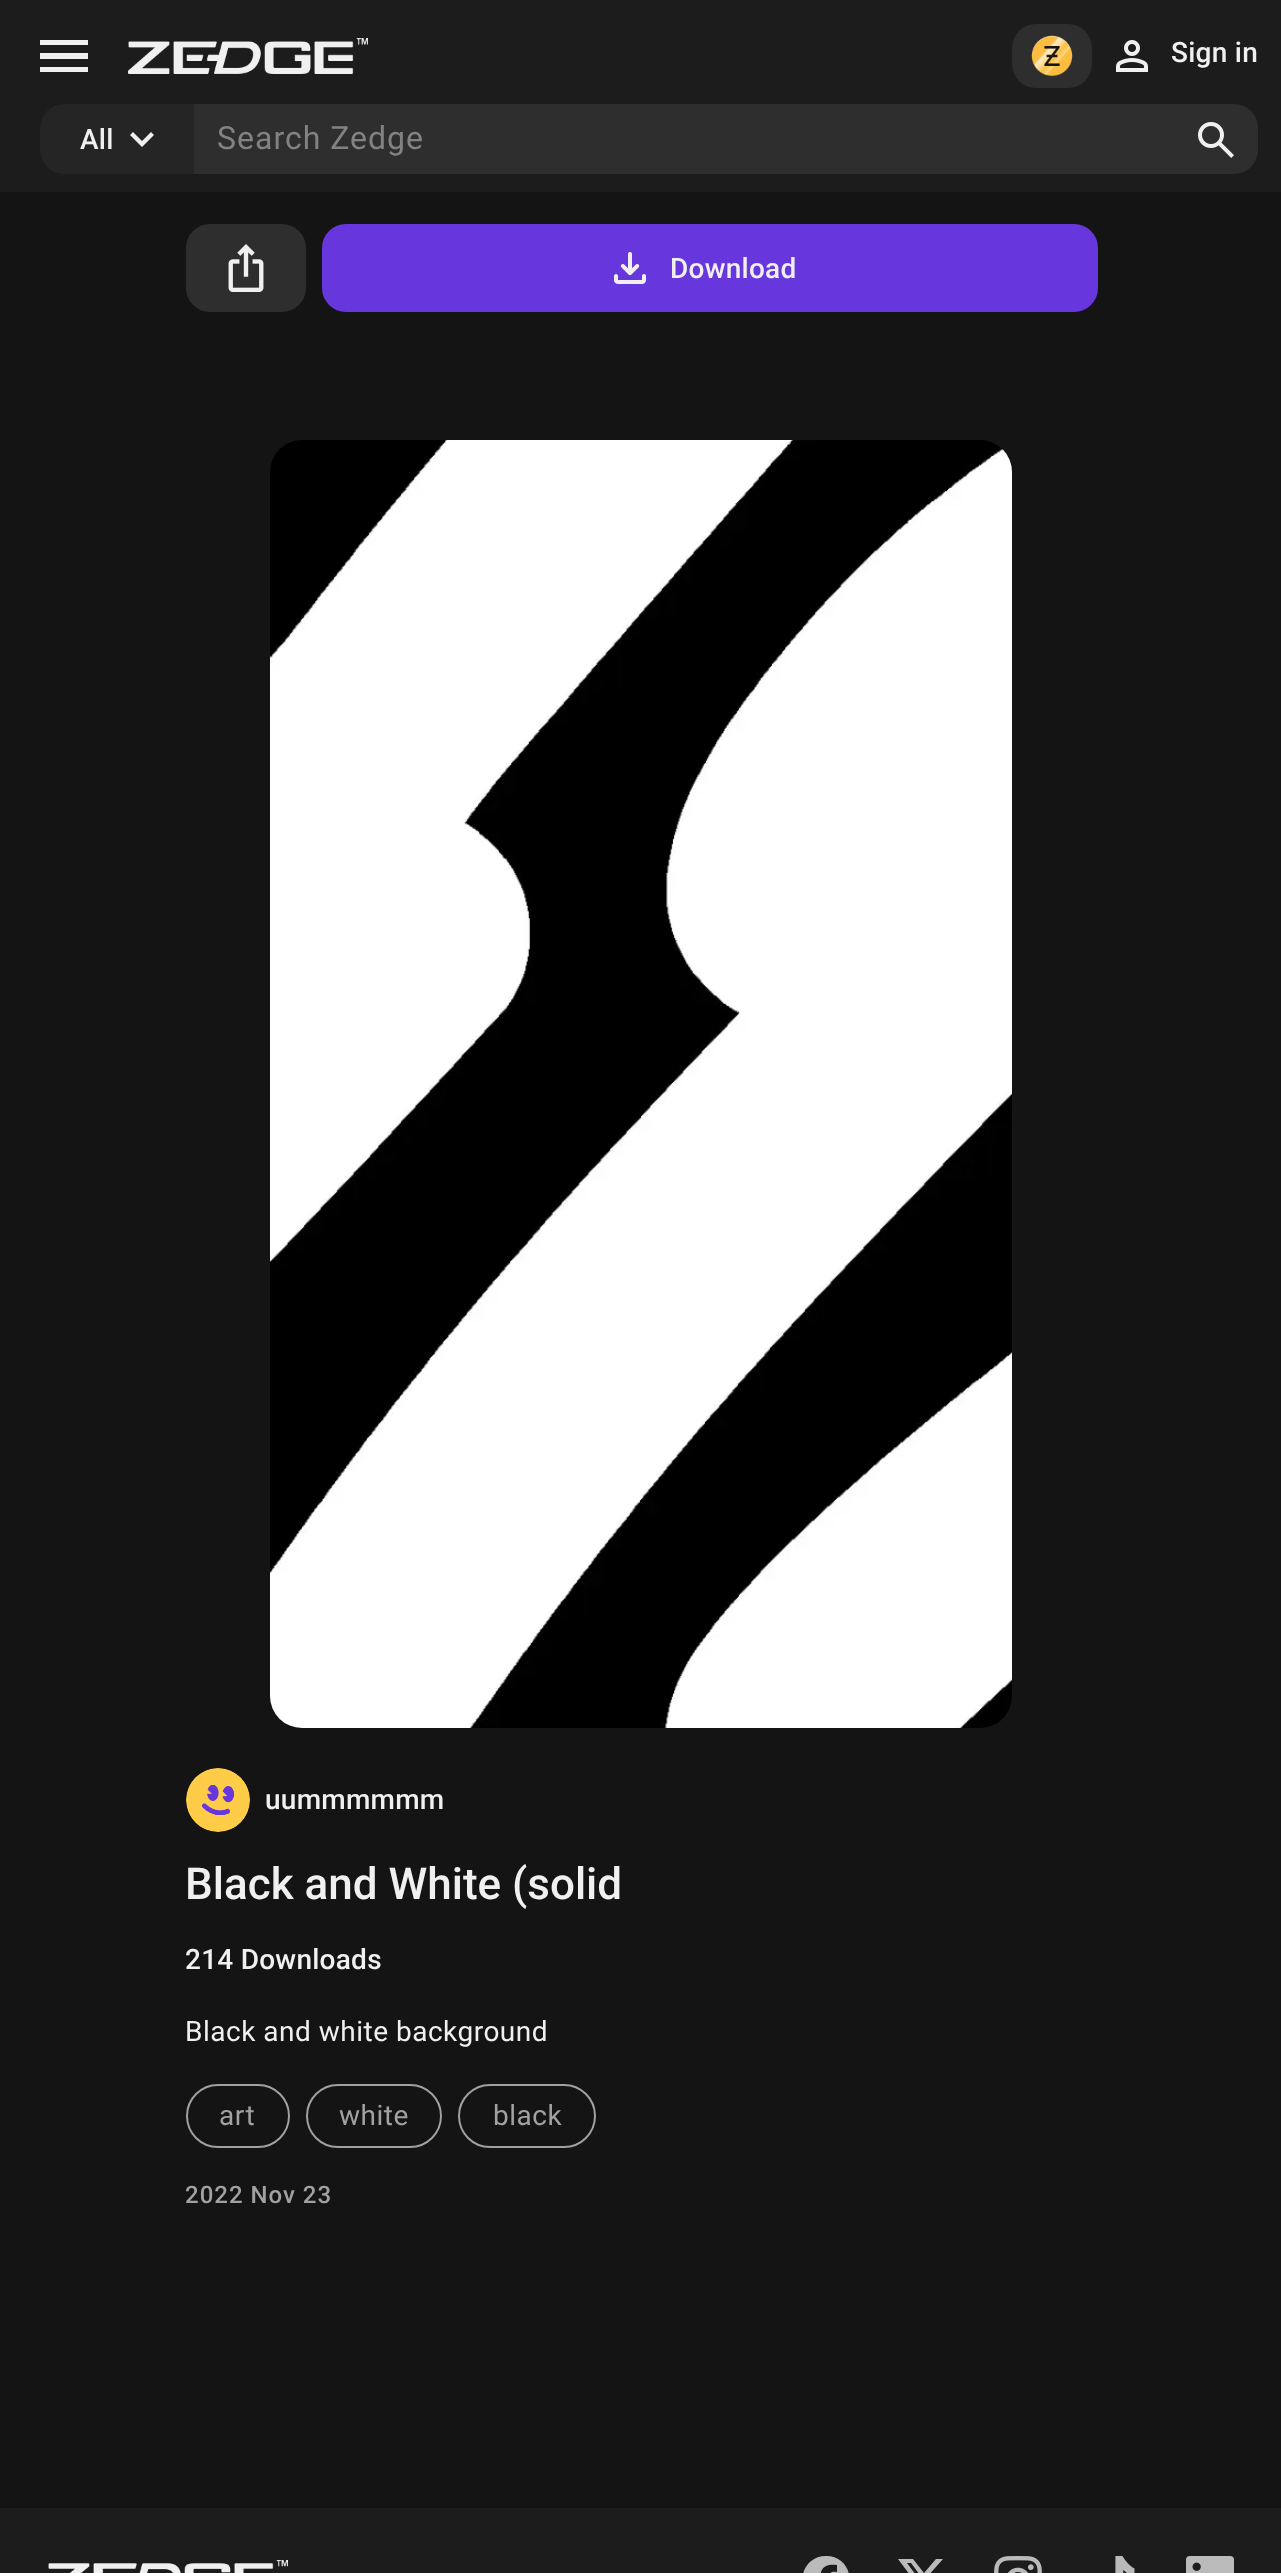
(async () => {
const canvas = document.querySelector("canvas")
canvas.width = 1281
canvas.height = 2573
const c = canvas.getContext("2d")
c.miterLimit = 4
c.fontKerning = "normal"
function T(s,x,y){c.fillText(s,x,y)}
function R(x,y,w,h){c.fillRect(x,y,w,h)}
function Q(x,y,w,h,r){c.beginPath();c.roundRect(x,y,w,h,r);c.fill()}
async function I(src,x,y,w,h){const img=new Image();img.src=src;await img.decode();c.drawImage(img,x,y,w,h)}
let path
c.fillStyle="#141414"
R(0,0,1281,2573)
c.fillStyle="#1c1c1c"
R(0,0,1281,192)
c.fillStyle="#f0f0f0"
path = new Path2D("M40 72v-5h48v5zm0-13v-6h48v6zm0-14v-5h48v5z")
c.fill(path)
await I("1.png",128,38,240,36)
c.fillStyle="#2e2e2e"
Q(1012,24,80,64,24)
await I("2.png",1031,35,42,42)
await I("3.png",1116,40,32,32)
c.letterSpacing="0.25px"
c.font="500 28px Roboto"
c.fillStyle="#f0f0f0"
T("Sign in",1171,62)
c.fillStyle="#252525"
c.beginPath()
c.roundRect(40,104,154,70,[24,0,0,24])
c.fill()
c.fillStyle="#f0f0f0"
T("All",80,149)
path = new Path2D("M142 147l-12-12l3-3l9 9l9-9l3 3z")
c.fill(path)
c.fillStyle="#2e2e2e"
c.beginPath()
c.roundRect(194,104,1064,70,[0,24,24,0])
c.fill()
c.letterSpacing="1px"
c.font="32px Roboto"
c.fillStyle="#828282"
T("Search Zedge",217,149)
await I("4.png",1198,122,36,36)
c.fillStyle="#2e2e2e"
Q(186,224,120,88,24)
await I("5.png",228,244,36,48)
c.fillStyle="#6836dd"
Q(322,224,776,88,24)
await I("6.png",614,252,32,32)
c.letterSpacing="0.25px"
c.font="500 28px Roboto"
c.fillStyle="#f0f0f0"
T("Download",670,278)
await I("7.png",270,440,742,1288)
await I("8.png",186,1768,64,64)
T("uummmmmm",265,1809)
c.letterSpacing="0px"
c.font="500 44px Roboto"
T("Black and White (solid",185,1899)
c.letterSpacing="0.25px"
c.font="500 28px Roboto"
T("214 Downloads",185,1969)
c.letterSpacing="0.5px"
c.font="28px Roboto"
T("Black and white background",185,2041)
c.beginPath()
c.roundRect(187,2085,102,62,31)
c.strokeStyle="#a1a1a1"
c.lineWidth=2
c.stroke()
c.fillStyle="#a1a1a1"
T("art",219,2125)
c.beginPath()
c.roundRect(307,2085,134,62,31)
c.stroke()
T("white",339,2125)
c.beginPath()
c.roundRect(459,2085,136,62,31)
c.stroke()
T("black",493,2125)
c.letterSpacing="1px"
c.font="500 24px Roboto"
T("2022 Nov 23",185,2203)
c.fillStyle="#1c1c1c"
R(0,2508,1281,65)
await I("9.png",48,2560,240,13)
c.fillStyle="#bbb"
path = new Path2D("M826 2556c-28 0-33 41-6 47v-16h-5v-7h5l1-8c2-7 10-8 16-7v7c-7-1-8 1-8 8h8l-2 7h-6v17c29-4 27-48-3-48z")
c.fill(path)
path = new Path2D("M936 2559h7l-16 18l19 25h-15l-11-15l-14 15h-7l17-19l-18-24h15l11 14zm-3 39h4l-26-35h-4z")
c.fill(path)
await I("10.png",994,2556,48,17)
await I("11.png",1115,2556,20,17)
await I("12.png",1186,2556,48,17)
})()
